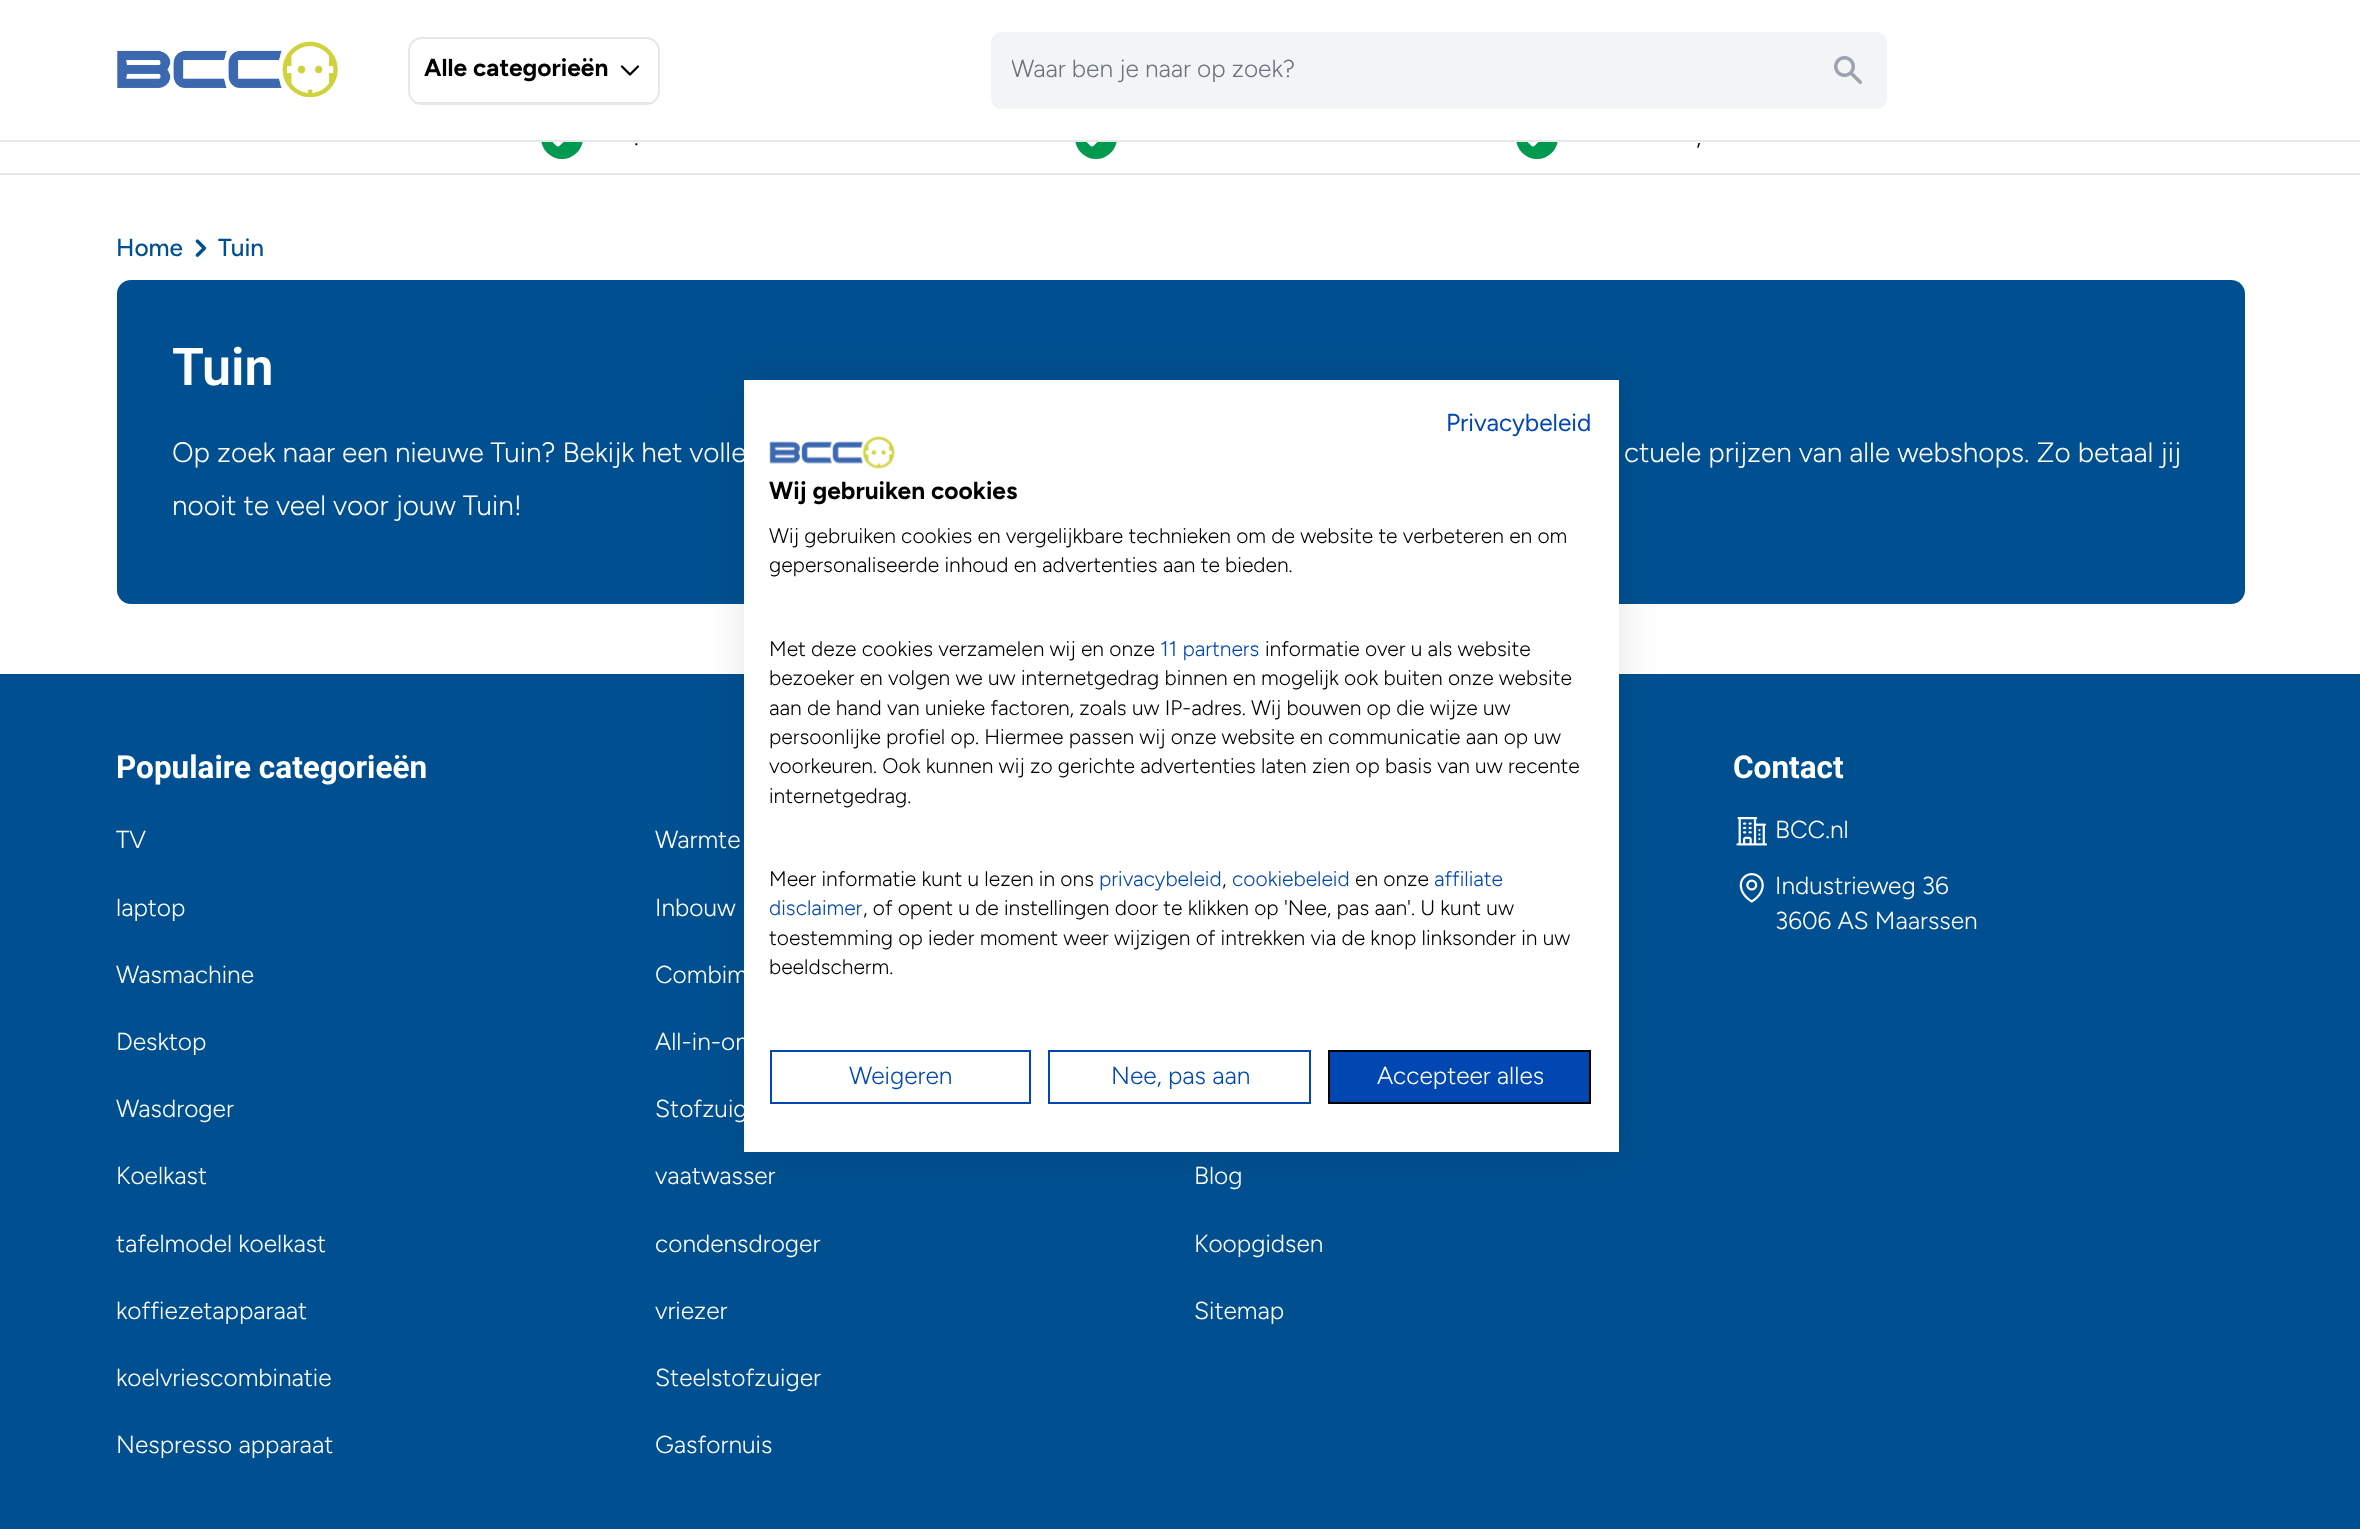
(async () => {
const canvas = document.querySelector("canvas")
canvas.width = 2360
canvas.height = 1529
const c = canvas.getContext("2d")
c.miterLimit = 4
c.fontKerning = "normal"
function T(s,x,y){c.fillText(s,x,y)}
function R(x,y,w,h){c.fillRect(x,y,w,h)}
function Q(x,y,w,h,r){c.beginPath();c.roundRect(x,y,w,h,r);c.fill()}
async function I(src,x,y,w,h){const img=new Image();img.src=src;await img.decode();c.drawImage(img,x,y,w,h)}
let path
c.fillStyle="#fff"
R(0,0,2360,1529)
c.fillStyle="#009950"
c.beginPath()
c.arc(562,138,21,0,7)
c.fill()
path = new Path2D("M553.5 139.5l4.5 4.5l12-11.5")
c.strokeStyle="#fff"
c.lineWidth=4.7
c.lineCap="round"
c.lineJoin="round"
c.stroke(path)
c.beginPath()
c.arc(1096,138,21,0,7)
c.fill()
path = new Path2D("M1087.5 139.5l4.5 4.5l11.5-11.5")
c.stroke(path)
c.beginPath()
c.arc(1537,138,21,0,7)
c.fill()
path = new Path2D("M1528.5 139.5l4.5 4.5l11.5-11.5")
c.stroke(path)
c.fillStyle="#fff"
R(541,117,1017,23)
c.fillStyle="#e5e7eb"
R(0,140,2360,2)
await I("1.png",117,41,221,57)
c.beginPath()
c.roundRect(409,38,250,66,13)
c.strokeStyle="#e5e7eb"
c.lineWidth=2
c.lineJoin="miter"
c.stroke()
R(415,102,238,2)
c.font="bold 24.5px Figtree"
c.fillStyle="#000"
T("Alle categorieën",424,76)
path = new Path2D("M638 66.5l-8 8l-8-8")
c.strokeStyle="#000"
c.lineWidth=2.3
c.lineJoin="round"
c.stroke(path)
c.fillStyle="#f3f4f6"
Q(991,32,896,77,11)
c.save()
c.beginPath()
c.rect(1012,54,777,30)
c.clip()
c.font="300 24.5px Figtree"
c.fillStyle="#6b7280"
T("Waar ben je naar op zoek?",1011,77)
c.restore()
await I("2.png",1834,56,28,28)
c.fillStyle="#e5e7eb"
R(0,173,2360,2)
c.font="300 24.5px Figtree"
c.fillStyle="#000"
T(".",634,145)
T(",",1696,145)
c.font="500 24.5px Figtree"
c.fillStyle="#005091"
T("Home",116,256)
await I("3.png",195,239,12,18)
T("Tuin",218,256)
Q(117,280,2128,324,14)
c.font="600 52px Roboto"
c.fillStyle="#fff"
T("Tuin",172,385)
c.font="300 28px Figtree"
T("Op zoek naar een nieuwe Tuin? Bekijk het volle",172,462)
T("ctuele prijzen van alle webshops. Zo betaal jij",1624,462)
T("nooit te veel voor jouw Tuin!",172,515)
c.fillStyle="#005091"
R(0,674,2360,855)
c.fillStyle="#0000001a"
c.filter="blur(21px)"
c.beginPath()
c.rect(744,380,875,772)
c.fill()
c.filter="none"
c.fillStyle="#fff"
R(744,380,875,772)
c.font="24.5px Figtree"
c.fillStyle="#0047b2"
T("Privacybeleid",1446,431)
await I("4.png",769,436,126,33)
c.font="bold 24.5px Figtree"
c.fillStyle="#000"
T("Wij gebruiken cookies",769,499)
c.font="300 21px Figtree"
T("Wij gebruiken cookies en vergelijkbare technieken om de website te verbeteren en om",769,543)
T("gepersonaliseerde inhoud en advertenties aan te bieden.",769,572)
T("Met deze cookies verzamelen wij en onze",769,656)
c.fillStyle="#0047b2"
T("11 partners",1160,656)
c.fillStyle="#000"
T("informatie over u als website",1265,656)
T("bezoeker en volgen we uw internetgedrag binnen en mogelijk ook buiten onze website",769,685)
T("aan de hand van unieke factoren, zoals uw IP-adres. Wij bouwen op die wijze uw",769,715)
T("persoonlijke profiel op. Hiermee passen wij onze website en communicatie aan op uw",769,744)
T("voorkeuren. Ook kunnen wij zo gerichte advertenties laten zien op basis van uw recente",769,773)
T("internetgedrag.",769,803)
T("Meer informatie kunt u lezen in ons",769,886)
c.fillStyle="#0047b2"
T("privacybeleid",1099,886)
c.fillStyle="#000"
T(",",1222,886)
c.fillStyle="#0047b2"
T("cookiebeleid",1232,886)
c.fillStyle="#000"
T("en onze",1355,886)
c.fillStyle="#0047b2"
T("affiliate",1434,886)
T("disclaimer",769,915)
c.fillStyle="#000"
T(", of opent u de instellingen door te klikken op 'Nee, pas aan'. U kunt uw",863,915)
T("toestemming op ieder moment weer wijzigen of intrekken via de knop linksonder in uw",769,945)
T("beeldscherm.",769,974)
c.strokeStyle="#0047b2"
c.lineWidth=2
c.lineJoin="miter"
c.strokeRect(771,1051,259,52)
c.font="300 24.5px Figtree"
c.fillStyle="#0047b2"
T("Weigeren",849,1084)
c.strokeRect(1049,1051,261,52)
T("Nee, pas aan",1111,1084)
c.beginPath()
c.rect(1329,1051,261,52)
c.fill()
c.strokeStyle="#000"
c.stroke()
c.fillStyle="#fff"
T("Accepteer alles",1377,1084)
c.font="bold 31.5px Roboto"
T("Populaire categorieën",116,778)
c.font="300 24.5px Figtree"
T("TV",116,848)
T("laptop",116,916)
T("Wasmachine",116,983)
T("Desktop",116,1050)
T("Wasdroger",116,1117)
T("Koelkast",116,1184)
T("tafelmodel koelkast",116,1252)
T("koffiezetapparaat",116,1319)
T("koelvriescombinatie",116,1386)
T("Nespresso apparaat",116,1453)
T("Warmte",655,848)
T("Inbouw",655,916)
T("Combim",655,983)
T("All-in-on",655,1050)
T("Stofzuig",655,1117)
T("vaatwasser",655,1184)
T("condensdroger",655,1252)
T("vriezer",655,1319)
T("Steelstofzuiger",655,1386)
T("Gasfornuis",655,1453)
T("Blog",1194,1184)
T("Koopgidsen",1194,1252)
T("Sitemap",1194,1319)
c.font="bold 31.5px Roboto"
T("Contact",1733,778)
await I("5.png",1736,817,32,29)
c.font="300 24.5px Figtree"
T("BCC.nl",1775,838)
await I("6.png",1739,873,25,30)
T("Industrieweg 36",1775,894)
T("3606 AS Maarssen",1775,929)
})()
